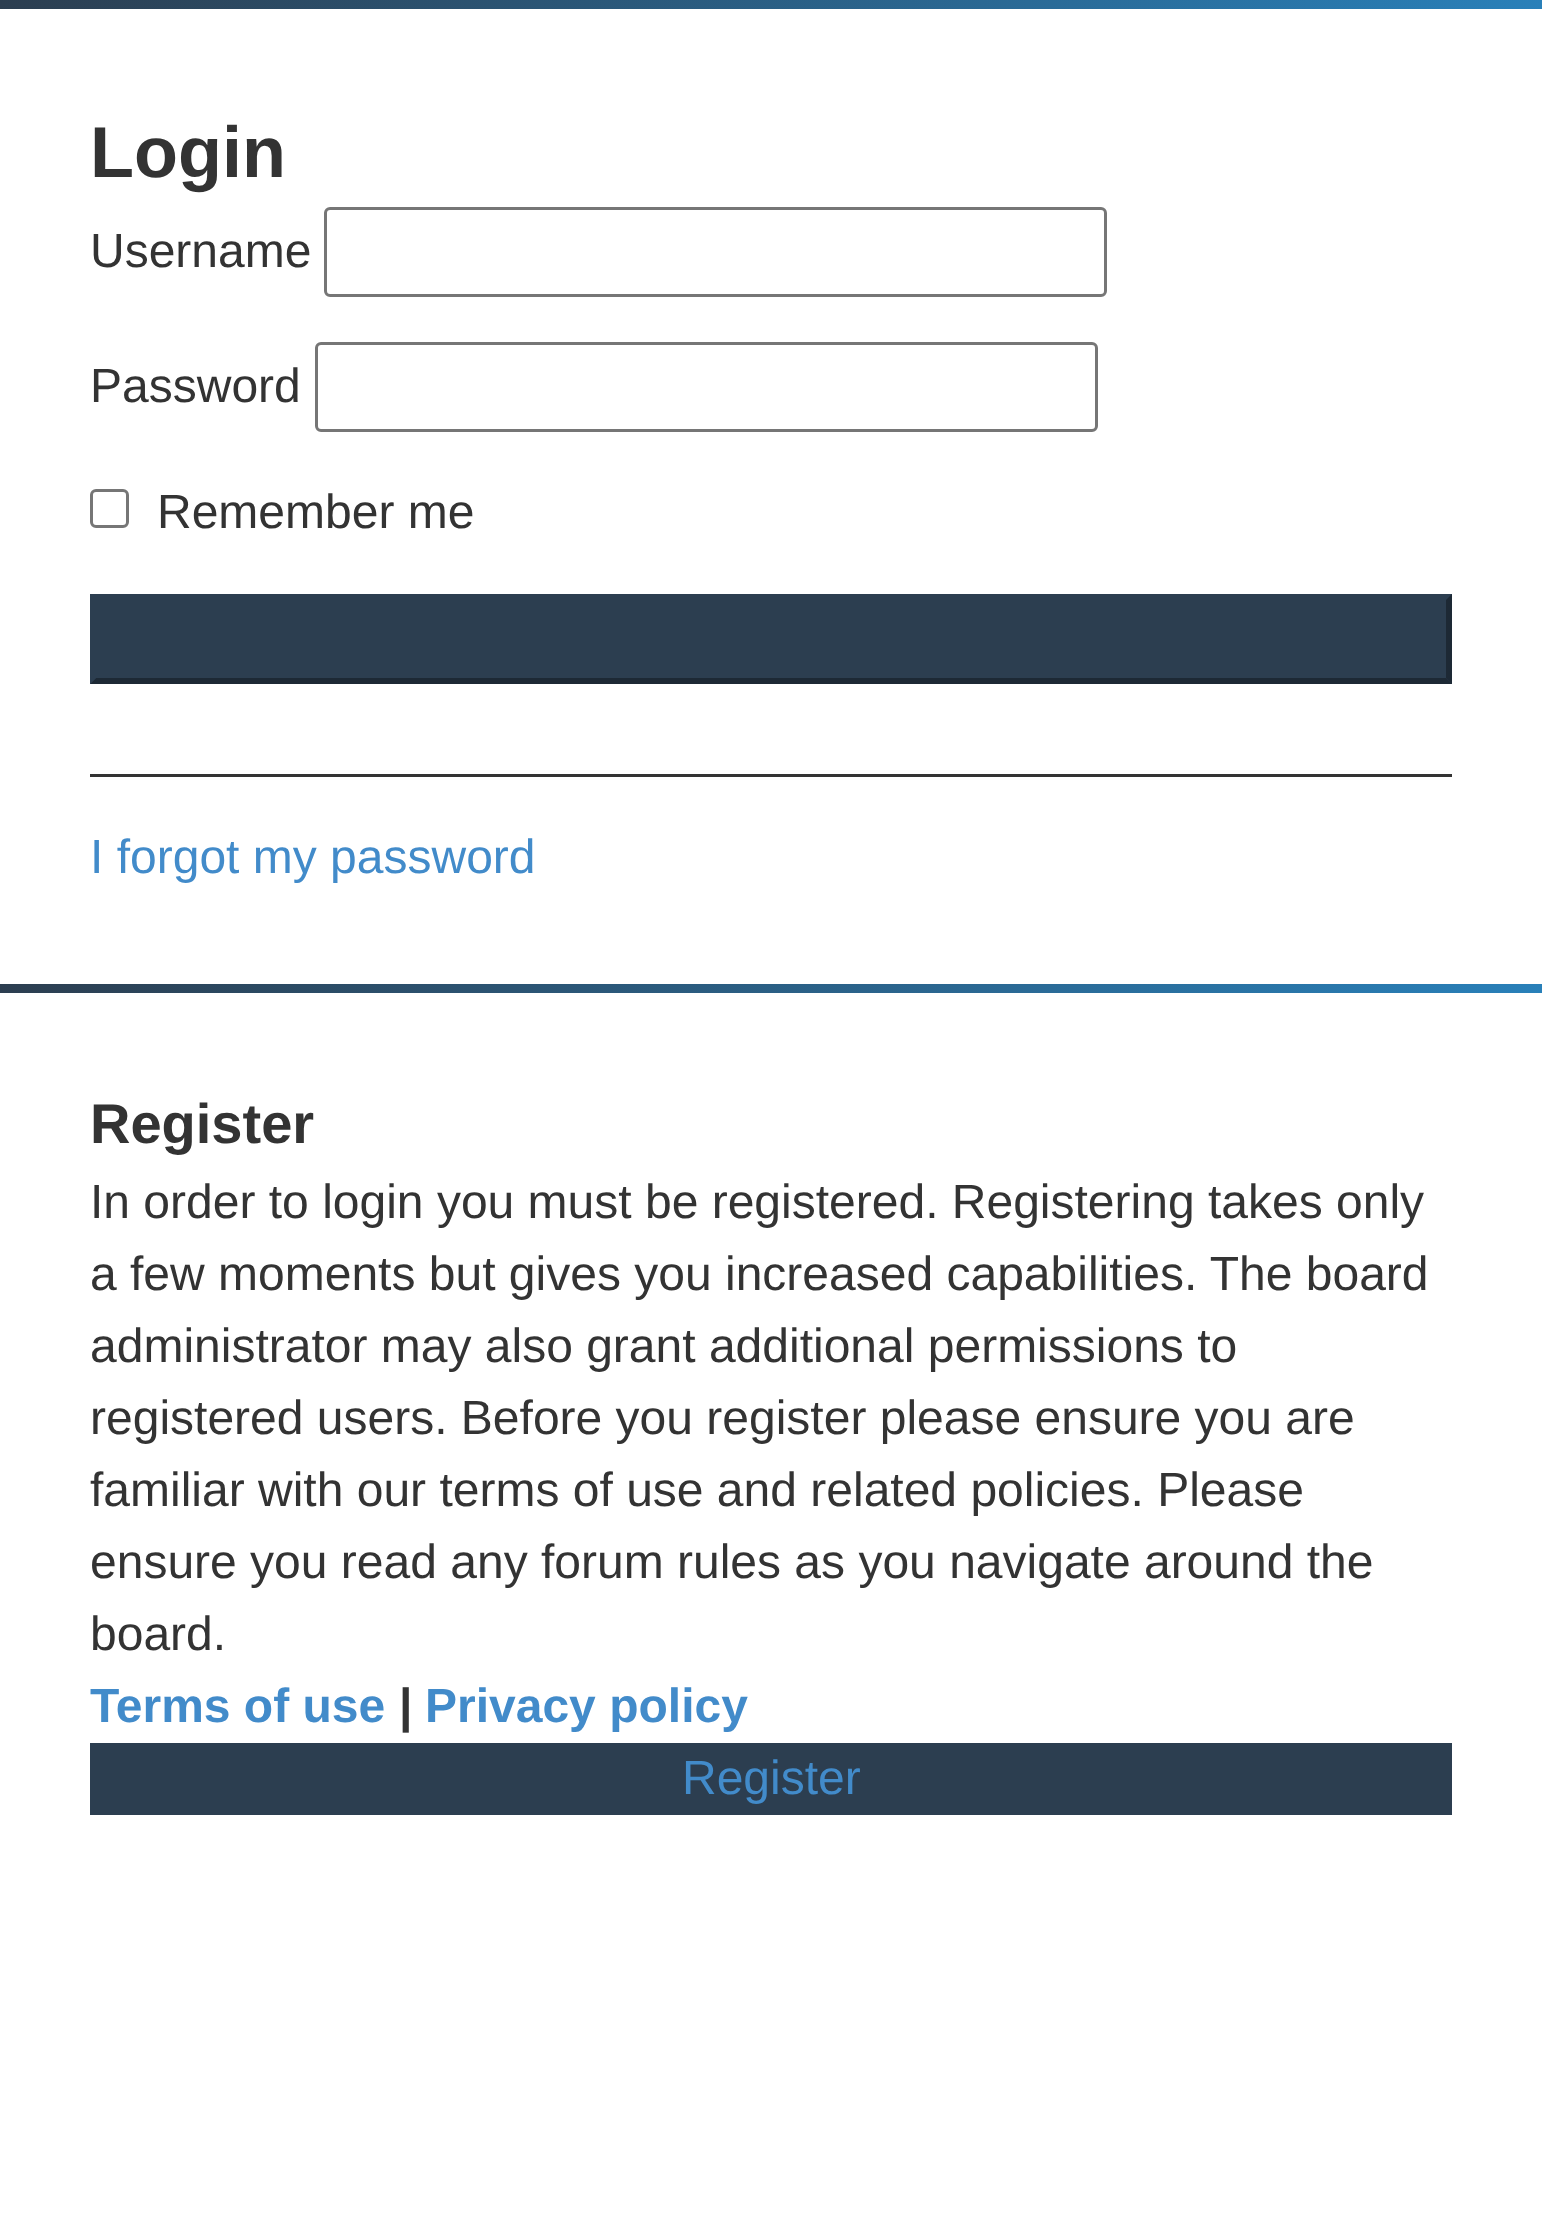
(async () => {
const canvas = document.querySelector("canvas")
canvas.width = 1542
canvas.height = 2236
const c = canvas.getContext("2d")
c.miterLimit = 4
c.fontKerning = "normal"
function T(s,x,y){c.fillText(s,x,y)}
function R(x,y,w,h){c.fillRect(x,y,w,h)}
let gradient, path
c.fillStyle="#fff"
R(0,0,1542,2236)
gradient = c.createLinearGradient(0,4.5,1542,4.5)
gradient.addColorStop(0,"#2c3e50")
gradient.addColorStop(1,"#2980b9")
c.fillStyle = gradient
R(0,0,1542,9)
c.font="bold 72px Liberation Sans"
c.fillStyle="#333"
T("Login",90,177)
c.font="48px Liberation Sans"
T("Username",90,267)
c.beginPath()
c.roundRect(325.5,208.5,780,87,4.5)
c.strokeStyle="#767676"
c.lineWidth=3
c.stroke()
T("Password",90,402)
c.beginPath()
c.roundRect(316.5,343.5,780,87,4.5)
c.stroke()
c.beginPath()
c.roundRect(91.5,490.5,36,36,4.5)
c.stroke()
T("Remember me",157,528)
c.fillStyle="#2c3e50"
R(90,594,1362,90)
c.fillStyle="#1d2935"
path = new Path2D("M1452 594v90l-6-6v-78z")
c.fill(path)
path = new Path2D("M1452 684h-1362l6-6h1350z")
c.fill(path)
c.fillStyle="#2c3e50"
path = new Path2D("M90 684v-90l6 6v78z")
c.fill(path)
c.fillStyle="#333"
R(90,774,1362,3)
c.fillStyle="#428bca"
T("I forgot my password",90,873)
gradient = c.createLinearGradient(0,989,1542,989)
gradient.addColorStop(0,"#2c3e50")
gradient.addColorStop(1,"#2980b9")
c.fillStyle = gradient
R(0,984,1542,9)
c.font="bold 56px Liberation Sans"
c.fillStyle="#333"
T("Register",90,1143)
c.font="48px Liberation Sans"
T("In order to login you must be registered. Registering takes only",90,1218)
T("a few moments but gives you increased capabilities. The board",90,1290)
T("administrator may also grant additional permissions to",90,1362)
T("registered users. Before you register please ensure you are",90,1434)
T("familiar with our terms of use and related policies. Please",90,1506)
T("ensure you read any forum rules as you navigate around the",90,1578)
T("board.",90,1650)
c.font="bold 48px Liberation Sans"
c.fillStyle="#428bca"
T("Terms of use",90,1722)
c.fillStyle="#333"
T("|",399,1722)
c.fillStyle="#428bca"
T("Privacy policy",425,1722)
c.fillStyle="#2c3e50"
R(90,1743,1362,72)
c.font="48px Liberation Sans"
c.fillStyle="#428bca"
T("Register",682,1794)
})()
